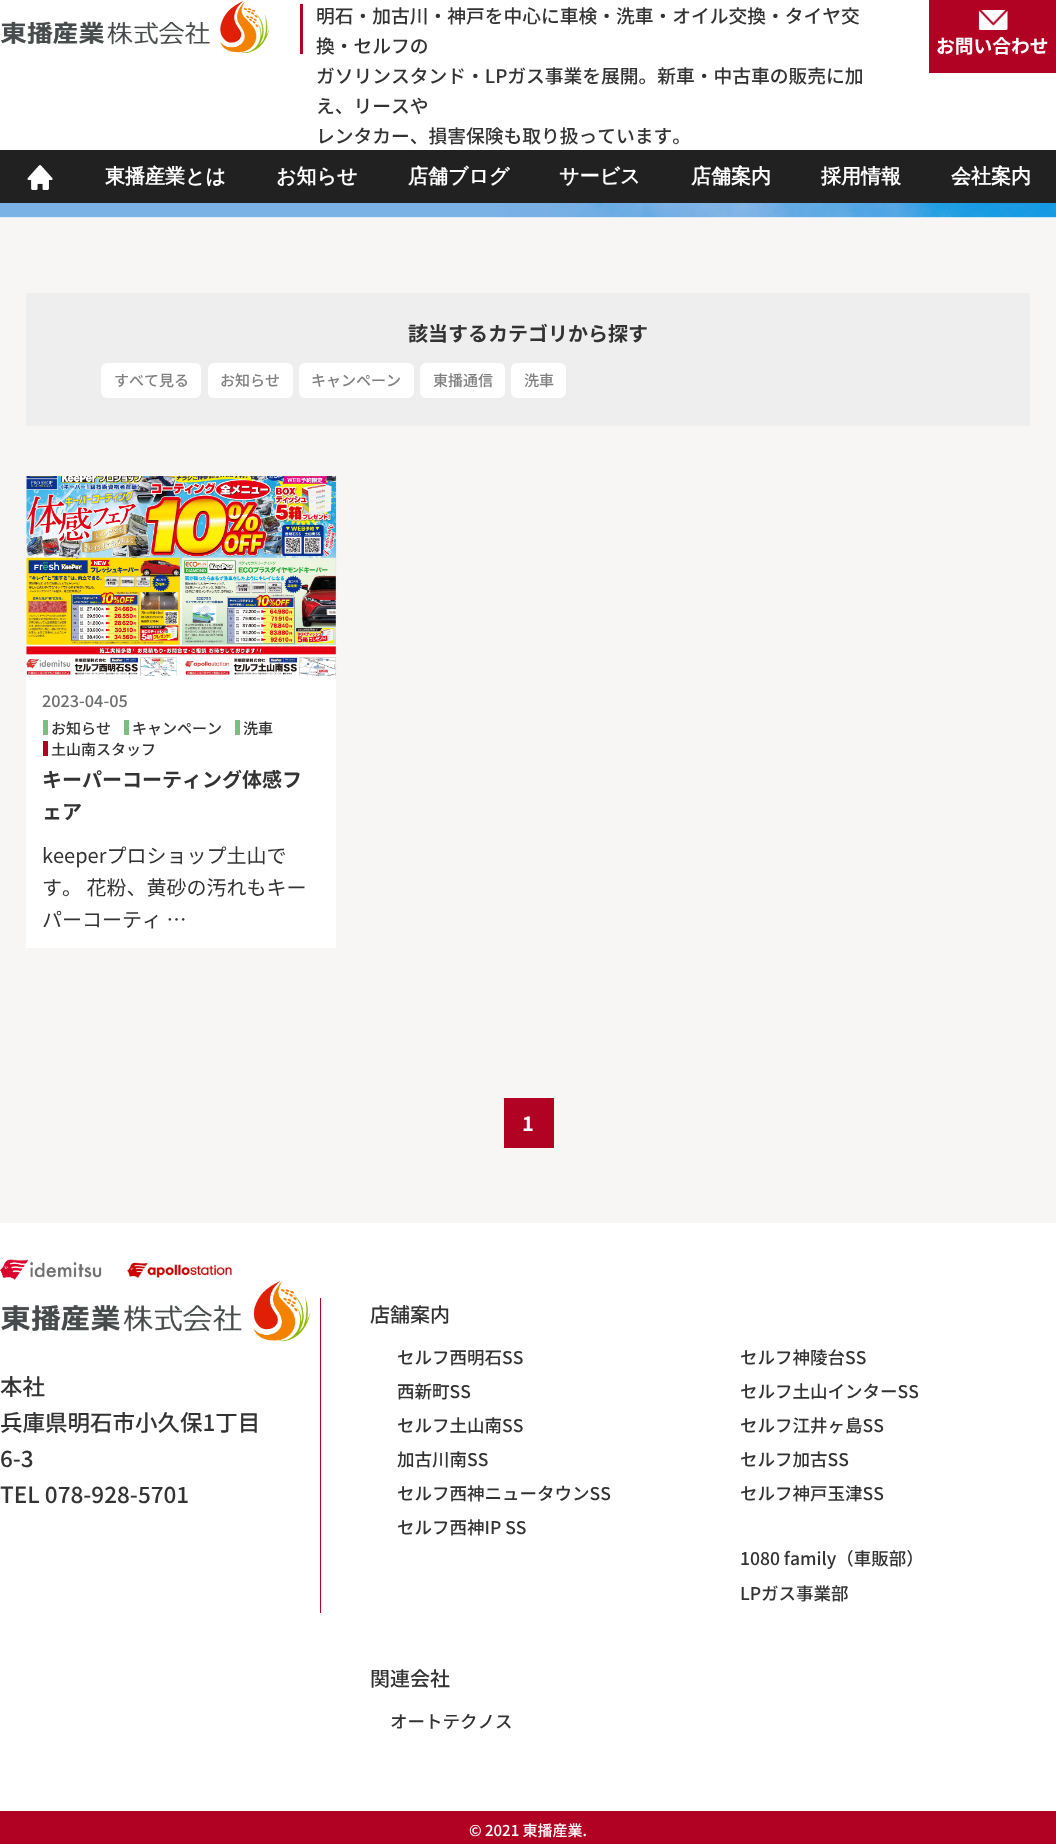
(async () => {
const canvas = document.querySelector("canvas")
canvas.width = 1056
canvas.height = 1844
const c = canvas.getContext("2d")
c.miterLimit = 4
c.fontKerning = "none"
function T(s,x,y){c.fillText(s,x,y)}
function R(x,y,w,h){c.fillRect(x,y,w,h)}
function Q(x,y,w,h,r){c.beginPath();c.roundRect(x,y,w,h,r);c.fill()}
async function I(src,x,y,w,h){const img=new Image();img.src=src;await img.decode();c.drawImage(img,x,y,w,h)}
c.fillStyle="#fff"
R(0,0,1056,1844)
await I("1.png",1,1,269,52)
c.fillStyle="#b30224"
R(300,4,3,50)
c.font="500 18.75px Noto Sans JP"
c.fillStyle="#333"
T("明石・加古川・神戸を中心に車検・洗車・オイル交換・タイヤ交",316,23)
T("換・セルフの",316,53)
T("ガソリンスタンド・LPガス事業を展開。新車・中古車の販売に加",316,83)
T("え、リースや",316,113)
T("レンタカー、損害保険も取り扱っています。",316,143)
c.fillStyle="#b20224"
R(929,0,127,73)
await I("2.png",978,10,30,20)
c.font="bold 18.75px Noto Sans JP"
c.fillStyle="#fff"
T("お問い合わせ",936,53)
c.fillStyle="#212121"
R(0,150,1056,53)
await I("3.png",27,165,26,25)
c.font="bold 20px WenQuanYi Zen Hei"
c.fillStyle="#fff"
T("東播産業とは",105,183)
T("お知らせ",276,183)
T("店舗ブログ",408,183)
T("サービス",559,183)
T("店舗案内",691,183)
T("採用情報",821,183)
T("会社案内",951,183)
await I("4.png",0,203,1056,15)
c.fillStyle="#f8f5f5"
R(0,218,1056,1005)
c.fillStyle="#eee"
R(26,293,1004,133)
c.font="bold 20px Noto Sans JP"
c.fillStyle="#333"
T("該当するカテゴリから探す",408,341)
c.fillStyle="#fff"
Q(101,363,100,35,6)
c.font="500 15px Noto Sans JP"
c.fillStyle="#808080"
T("すべて見る",114,386)
c.fillStyle="#fff"
Q(208,363,85,35,6)
c.fillStyle="#808080"
T("お知らせ",220,386)
c.fillStyle="#fff"
Q(299,363,115,35,6)
c.fillStyle="#808080"
T("キャンペーン",311,386)
c.fillStyle="#fff"
Q(420,363,85,35,6)
c.fillStyle="#808080"
T("東播通信",433,386)
c.fillStyle="#fff"
Q(511,363,55,35,6)
c.fillStyle="#808080"
T("洗車",524,386)
c.fillStyle="#fff"
R(26,476,310,472)
await I("5.png",26,476,311,200)
c.font="500 16.25px Noto Sans JP"
c.fillStyle="#6f7070"
T("2023-04-05",42,707)
c.fillStyle="#7cbe7f"
R(43,720,5,15)
c.font="500 15px Noto Sans JP"
c.fillStyle="#333"
T("お知らせ",51,734)
c.fillStyle="#7cbe7f"
R(124,720,5,15)
c.fillStyle="#333"
T("キャンペーン",132,734)
c.fillStyle="#7cbe7f"
R(235,720,5,15)
c.fillStyle="#333"
T("洗車",243,734)
c.fillStyle="#b20224"
R(43,741,5,15)
c.fillStyle="#333"
T("土山南スタッフ",51,755)
c.font="bold 20px Noto Sans JP"
T("キーパーコーティング体感フ",42,787)
T("ェア",42,819)
c.font="20px Noto Sans JP"
T("keeperプロショップ土山で",42,863)
T("す。 花粉、黄砂の汚れもキー",42,895)
T("パーコーティ …",42,927)
c.fillStyle="#b20224"
R(504,1098,50,50)
c.font="bold 20px Noto Sans JP"
c.fillStyle="#fff"
T("1",522,1131)
await I("6.png",0,1259,311,83)
c.font="500 22.5px Noto Sans JP"
c.fillStyle="#333"
T("本社",0,1395)
T("兵庫県明石市小久保1丁目",0,1431)
T("6-3",0,1467)
T("TEL 078-928-5701",0,1503)
c.fillStyle="#b30224"
R(320,1298,1,315)
c.font="500 20px Noto Sans JP"
c.fillStyle="#333"
T("店舗案内",370,1322)
c.font="500 17.5px Noto Sans JP"
T("セルフ西明石SS",397,1364)
T("西新町SS",397,1398)
T("セルフ土山南SS",397,1432)
T("加古川南SS",397,1466)
T("セルフ西神ニュータウンSS",397,1500)
T("セルフ西神IP SS",397,1534)
T("セルフ神陵台SS",740,1364)
T("セルフ土山インターSS",740,1398)
T("セルフ江井ヶ島SS",740,1432)
T("セルフ加古SS",740,1466)
T("セルフ神戸玉津SS",740,1500)
T("1080 family（車販部）",740,1565)
T("LPガス事業部",740,1600)
c.font="500 20px Noto Sans JP"
T("関連会社",370,1686)
c.font="500 17.5px Noto Sans JP"
T("オートテクノス",390,1728)
c.fillStyle="#b20224"
R(0,1811,1056,33)
c.font="500 15px Noto Sans JP"
c.fillStyle="#fff"
T("© 2021 東播産業.",469,1836)
})()
